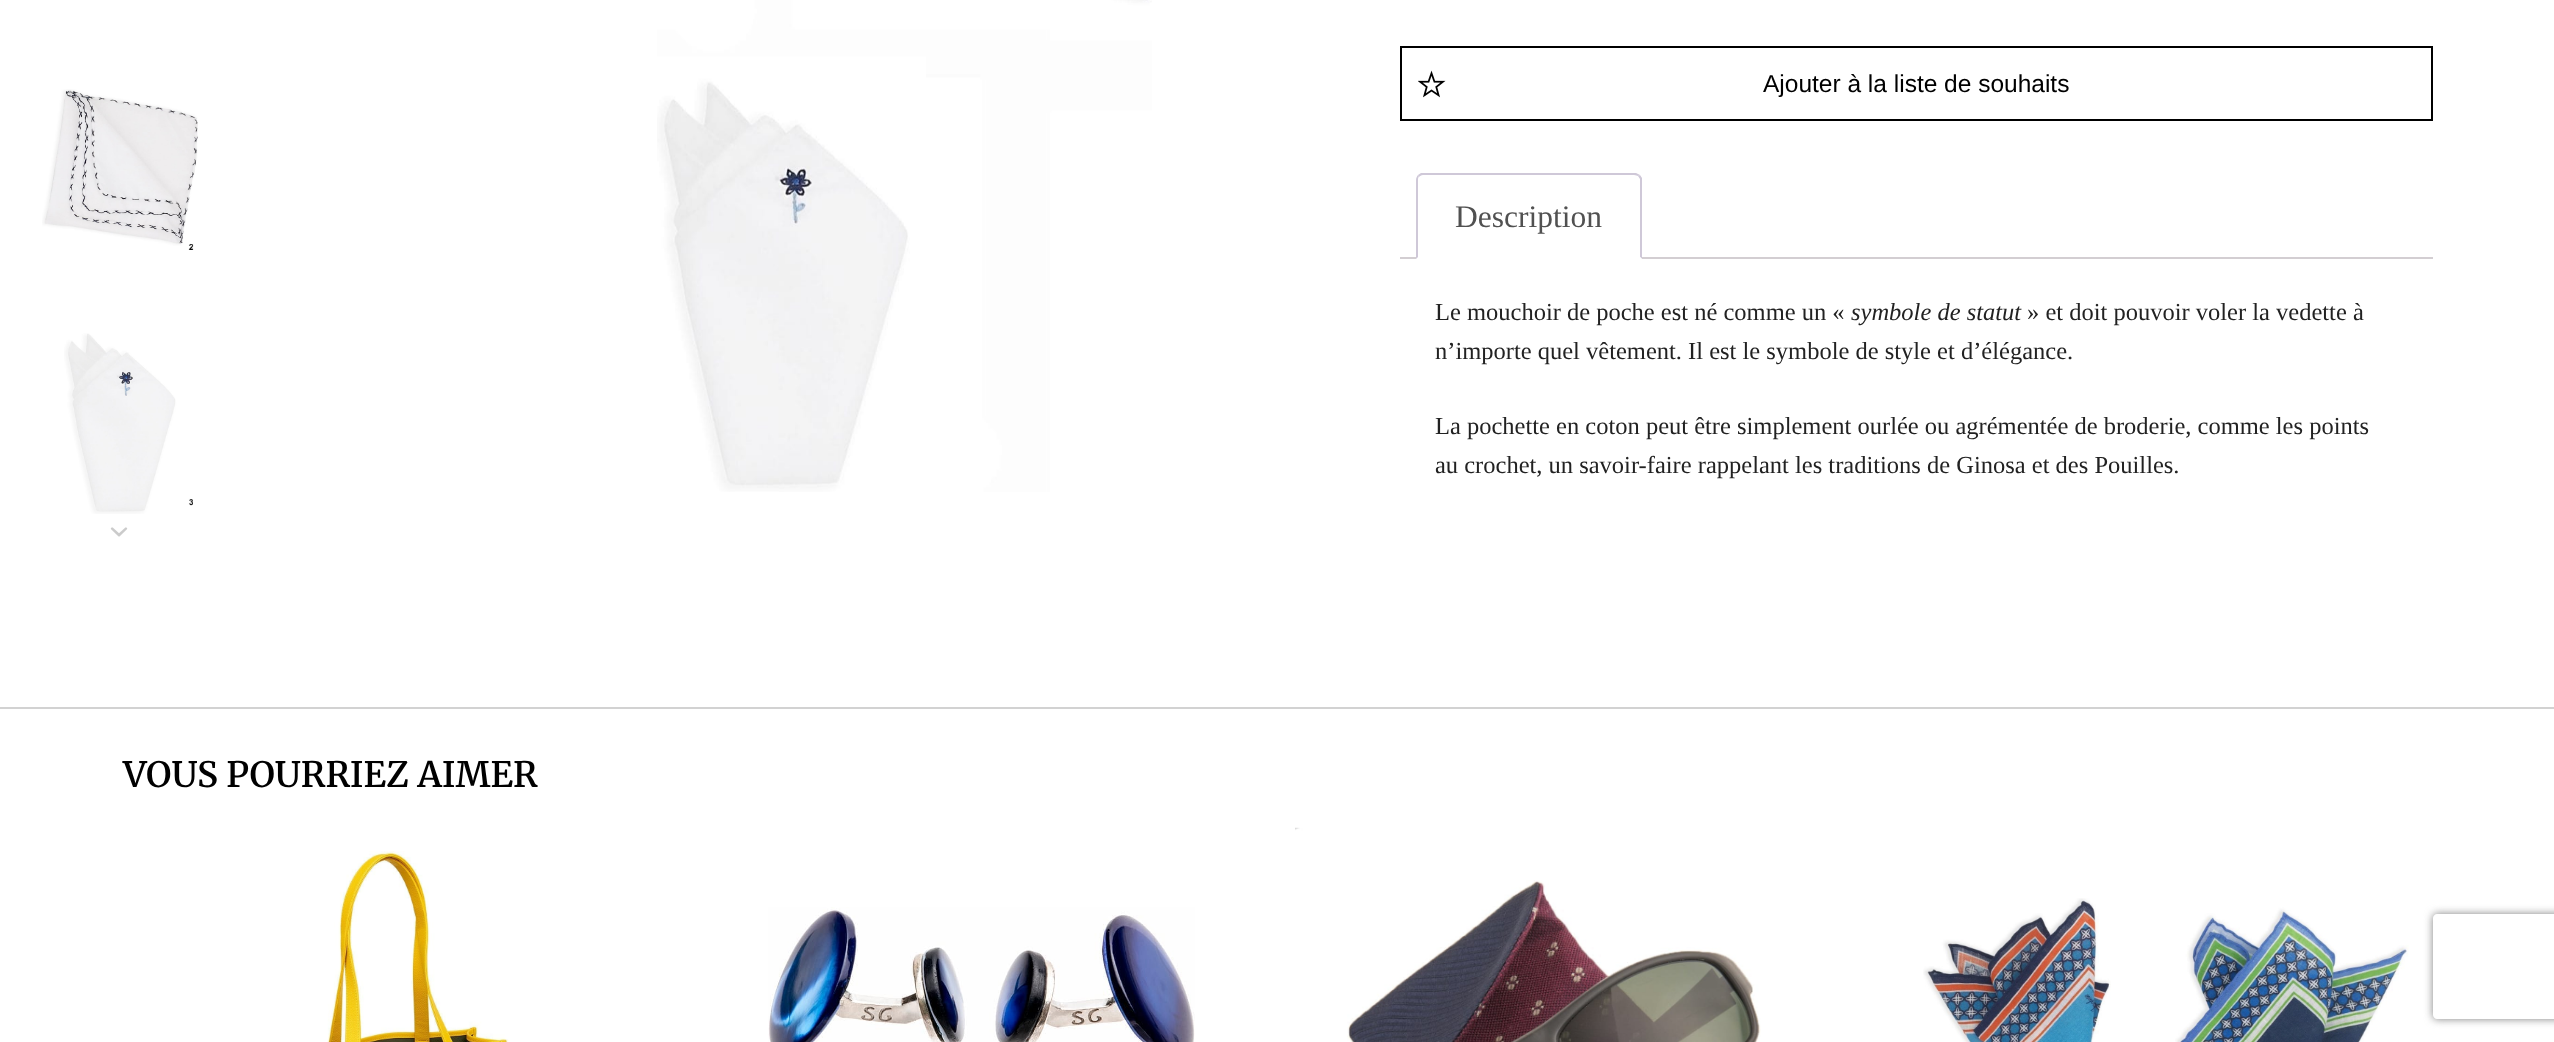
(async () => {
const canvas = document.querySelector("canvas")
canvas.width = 2554
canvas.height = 1042
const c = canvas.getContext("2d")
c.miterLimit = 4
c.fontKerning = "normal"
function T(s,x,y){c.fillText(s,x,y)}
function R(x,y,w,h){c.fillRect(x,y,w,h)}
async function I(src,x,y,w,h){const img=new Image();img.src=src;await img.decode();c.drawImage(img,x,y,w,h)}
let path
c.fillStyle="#fff"
R(0,0,2554,1042)
await I("1.png",42,89,156,161)
await I("2.png",64,333,129,181)
await I("3.png",110,527,18,10)
await I("4.png",657,0,495,492)
c.strokeStyle="#000"
c.lineWidth=2
c.strokeRect(1401,47,1031,73)
await I("5.png",1418,70,28,28)
c.font="24.5px Liberation Sans"
c.fillStyle="#000"
T("Ajouter à la liste de souhaits",1763,92)
c.fillStyle="#d3ced2"
R(1400,257,1033,2)
c.fillStyle="#fff"
c.beginPath()
c.roundRect(1416,173,226,86,[7,7,0,0])
c.fill()
c.fillStyle="#cfc8d8"
path = new Path2D("M1423 175c-2 0-3 1-4 2l-1-2l3-2h215l4 2l-2 1c-1 0-2-1-4-1z")
c.fill(path)
path = new Path2D("M1642 178v81l-2-2v-78l-2-3l2-1z")
c.fill(path)
c.fillStyle="#fff"
path = new Path2D("M1642 259l-2-2h-222l-2 2z")
c.fill(path)
c.fillStyle="#cfc8d8"
path = new Path2D("M1416 259v-79c0-2 1-4 2-5l1 2c-1 0-1 2-1 3v77z")
c.fill(path)
c.font="31.5px Liberation Serif"
c.fillStyle="#515151"
T("Description",1455,227)
c.font="24.5px Liberation Serif"
c.fillStyle="#222"
T("Le mouchoir de poche est né comme un «",1435,320)
c.font="italic 24.5px Liberation Serif"
T("symbole de statut",1851,320)
c.font="24.5px Liberation Serif"
T("» et doit pouvoir voler la vedette à",2027,320)
T("n’importe quel vêtement. Il est le symbole de style et d’élégance.",1435,359)
T("La pochette en coton peut être simplement ourlée ou agrémentée de broderie, comme les points",1435,434)
T("au crochet, un savoir-faire rappelant les traditions de Ginosa et des Pouilles.",1435,473)
c.fillStyle="#d2d2d2"
R(0,707,2554,2)
c.font="600 35px Merriweather"
c.fillStyle="#000"
T("VOUS POURRIEZ AIMER",123,787)
await I("6.png",327,851,182,191)
await I("7.png",768,907,427,135)
await I("8.png",1295,827,466,215)
await I("9.png",1923,898,486,144)
c.save()
path = new Path2D("M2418 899h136v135h-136zm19 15h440c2 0 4 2 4 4v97c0 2-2 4-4 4h-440c-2 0-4-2-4-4v-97c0-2 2-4 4-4z")
c.clip(path,"evenodd")
c.fillStyle="#808080"
c.filter="blur(4.5px)"
c.beginPath()
c.roundRect(2433,914,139,105,4)
c.fill()
c.filter="none"
c.restore()
})()
